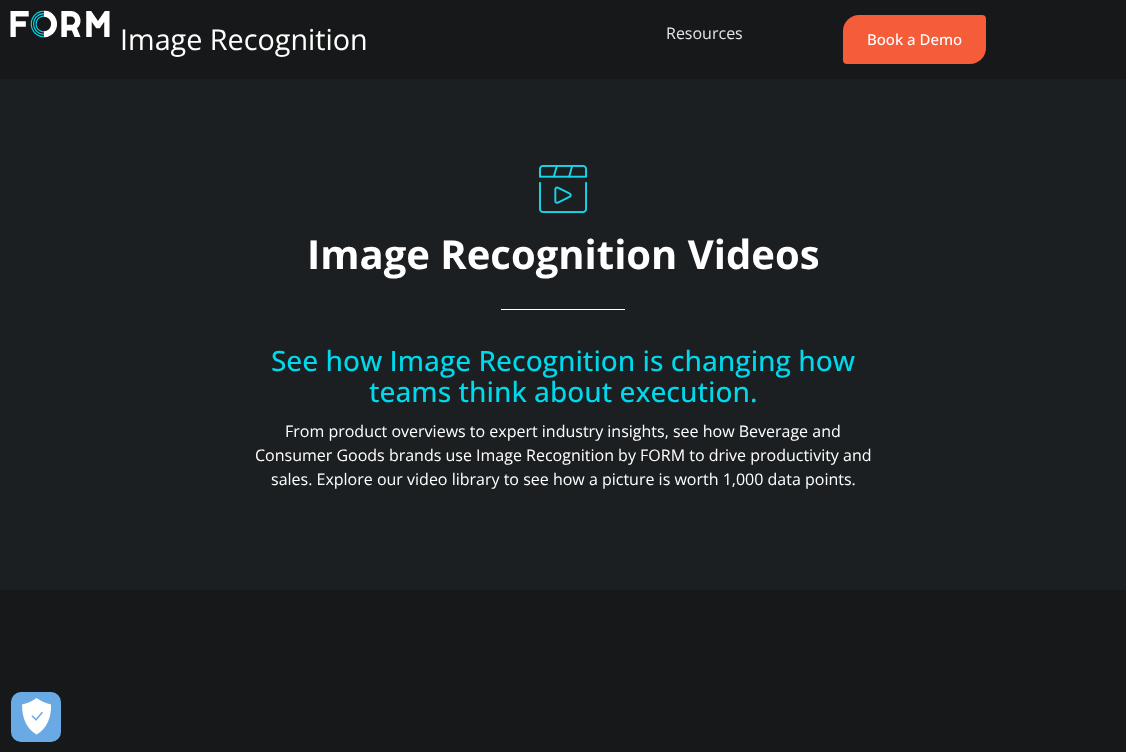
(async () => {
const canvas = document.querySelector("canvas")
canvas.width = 1126
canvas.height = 752
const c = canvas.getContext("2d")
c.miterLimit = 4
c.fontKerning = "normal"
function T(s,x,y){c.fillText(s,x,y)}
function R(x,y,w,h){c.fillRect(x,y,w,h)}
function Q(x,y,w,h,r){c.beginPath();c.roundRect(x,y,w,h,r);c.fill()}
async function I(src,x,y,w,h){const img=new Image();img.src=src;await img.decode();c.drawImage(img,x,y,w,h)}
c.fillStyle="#1b1f21"
R(0,0,1126,752)
c.fillStyle="#171819"
R(0,0,1126,79)
await I("1.png",10,10,100,28)
c.font="28.75px Open Sans"
c.fillStyle="#fff"
T("Image Recognition",120,50)
c.font="16px Open Sans"
c.fillStyle="#e4e5e6"
T("Resources",666,39)
c.fillStyle="#f45c3a"
c.beginPath()
c.roundRect(843,15,143,49,[16,4,16,4])
c.fill()
c.font="500 15px Open Sans"
c.fillStyle="#fff"
T("Book a Demo",867,45)
await I("2.png",539,165,48,48)
c.font="bold 40px Open Sans"
T("Image Recognition Videos",307,269)
R(501,309,124,1)
c.font="500 28px Open Sans"
c.fillStyle="#00d9eb"
T("See how Image Recognition is changing how",271,371)
T("teams think about execution.",369,402)
c.font="16px Open Sans"
c.fillStyle="#fff"
T("From product overviews to expert industry insights, see how Beverage and",285,437)
T("Consumer Goods brands use Image Recognition by FORM to drive productivity and",255,461)
T("sales. Explore our video library to see how a picture is worth 1,000 data points.",271,485)
c.fillStyle="#171819"
R(0,590,1126,162)
c.fillStyle="#6aaae4"
Q(11,692,50,50,10)
await I("3.png",22,698,29,37)
})()
